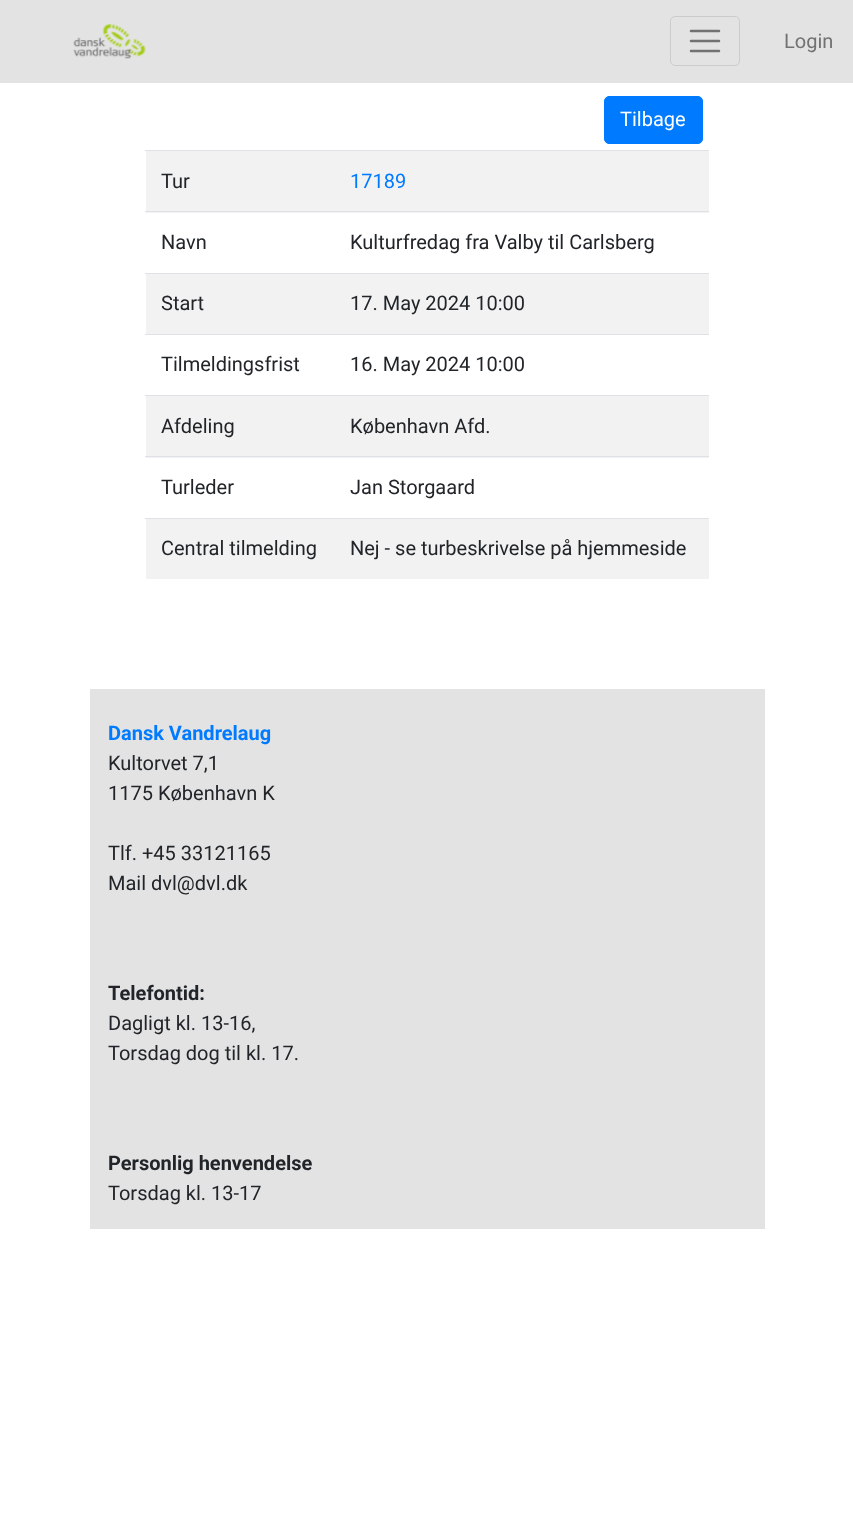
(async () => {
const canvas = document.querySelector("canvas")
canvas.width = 853
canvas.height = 1529
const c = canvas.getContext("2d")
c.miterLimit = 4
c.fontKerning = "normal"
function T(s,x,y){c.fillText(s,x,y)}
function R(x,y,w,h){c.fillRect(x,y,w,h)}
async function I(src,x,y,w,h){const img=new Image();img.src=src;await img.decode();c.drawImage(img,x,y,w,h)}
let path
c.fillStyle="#fff"
R(0,0,853,1529)
c.fillStyle="#e3e3e3"
R(0,0,853,83)
await I("1.png",73,24,73,35)
c.beginPath()
c.roundRect(670.5,16.5,69,49,4.5)
c.strokeStyle="#ccc"
c.stroke()
path = new Path2D("M691 31h28m-28 10h28m-28 10h28")
c.strokeStyle="#727272"
c.lineWidth=2.5
c.lineCap="round"
c.stroke(path)
c.font="20px Roboto"
c.fillStyle="#727272"
T("Login",784,48)
c.fillStyle="#007bff"
c.beginPath()
c.roundRect(604.5,96.5,98,47,4.5)
c.fill()
c.strokeStyle="#007bff"
c.lineWidth=1
c.stroke()
c.fillStyle="#fff"
T("Tilbage",620,126)
c.fillStyle="#f2f2f2"
R(146,151,563,62)
c.fillStyle="#212529"
T("Tur",161,188)
c.fillStyle="#dee2e6"
R(145,150,564,1)
c.fillStyle="#007bff"
T("17189",350,188)
c.fillStyle="#212529"
T("Navn",161,249)
c.fillStyle="#dee2e6"
R(145,211,564,1)
c.fillStyle="#212529"
T("Kulturfredag fra Valby til Carlsberg",350,249)
c.fillStyle="#f2f2f2"
R(146,274,563,60)
c.fillStyle="#212529"
T("Start",161,310)
c.fillStyle="#dee2e6"
R(145,273,564,1)
c.fillStyle="#212529"
T("17. May 2024 10:00",350,310)
T("Tilmeldingsfrist",161,371)
c.fillStyle="#dee2e6"
R(145,334,564,1)
c.fillStyle="#212529"
T("16. May 2024 10:00",350,371)
c.fillStyle="#f2f2f2"
R(146,396,563,62)
c.fillStyle="#212529"
T("Afdeling",161,433)
c.fillStyle="#dee2e6"
R(145,395,564,1)
c.fillStyle="#212529"
T("København Afd.",350,433)
T("Turleder",161,494)
c.fillStyle="#dee2e6"
R(145,456,564,1)
c.fillStyle="#212529"
T("Jan Storgaard",350,494)
c.fillStyle="#f2f2f2"
R(146,519,563,60)
c.fillStyle="#212529"
T("Central tilmelding",161,555)
c.fillStyle="#dee2e6"
R(145,518,564,1)
c.fillStyle="#212529"
T("Nej - se turbeskrivelse på hjemmeside",350,555)
c.fillStyle="#e3e3e3"
R(90,689,675,540)
c.font="bold 20px Roboto"
c.fillStyle="#007bff"
T("Dansk Vandrelaug",108,740)
c.font="20px Roboto"
c.fillStyle="#212529"
T("Kultorvet 7,1",108,770)
T("1175 København K",108,800)
T("Tlf. +45 33121165",108,860)
T("Mail dvl@dvl.dk",108,890)
c.font="bold 20px Roboto"
T("Telefontid:",108,1000)
c.font="20px Roboto"
T("Dagligt kl. 13-16,",108,1030)
T("Torsdag dog til kl. 17.",108,1060)
c.font="bold 20px Roboto"
T("Personlig henvendelse",108,1170)
c.font="20px Roboto"
T("Torsdag kl. 13-17",108,1200)
})()
